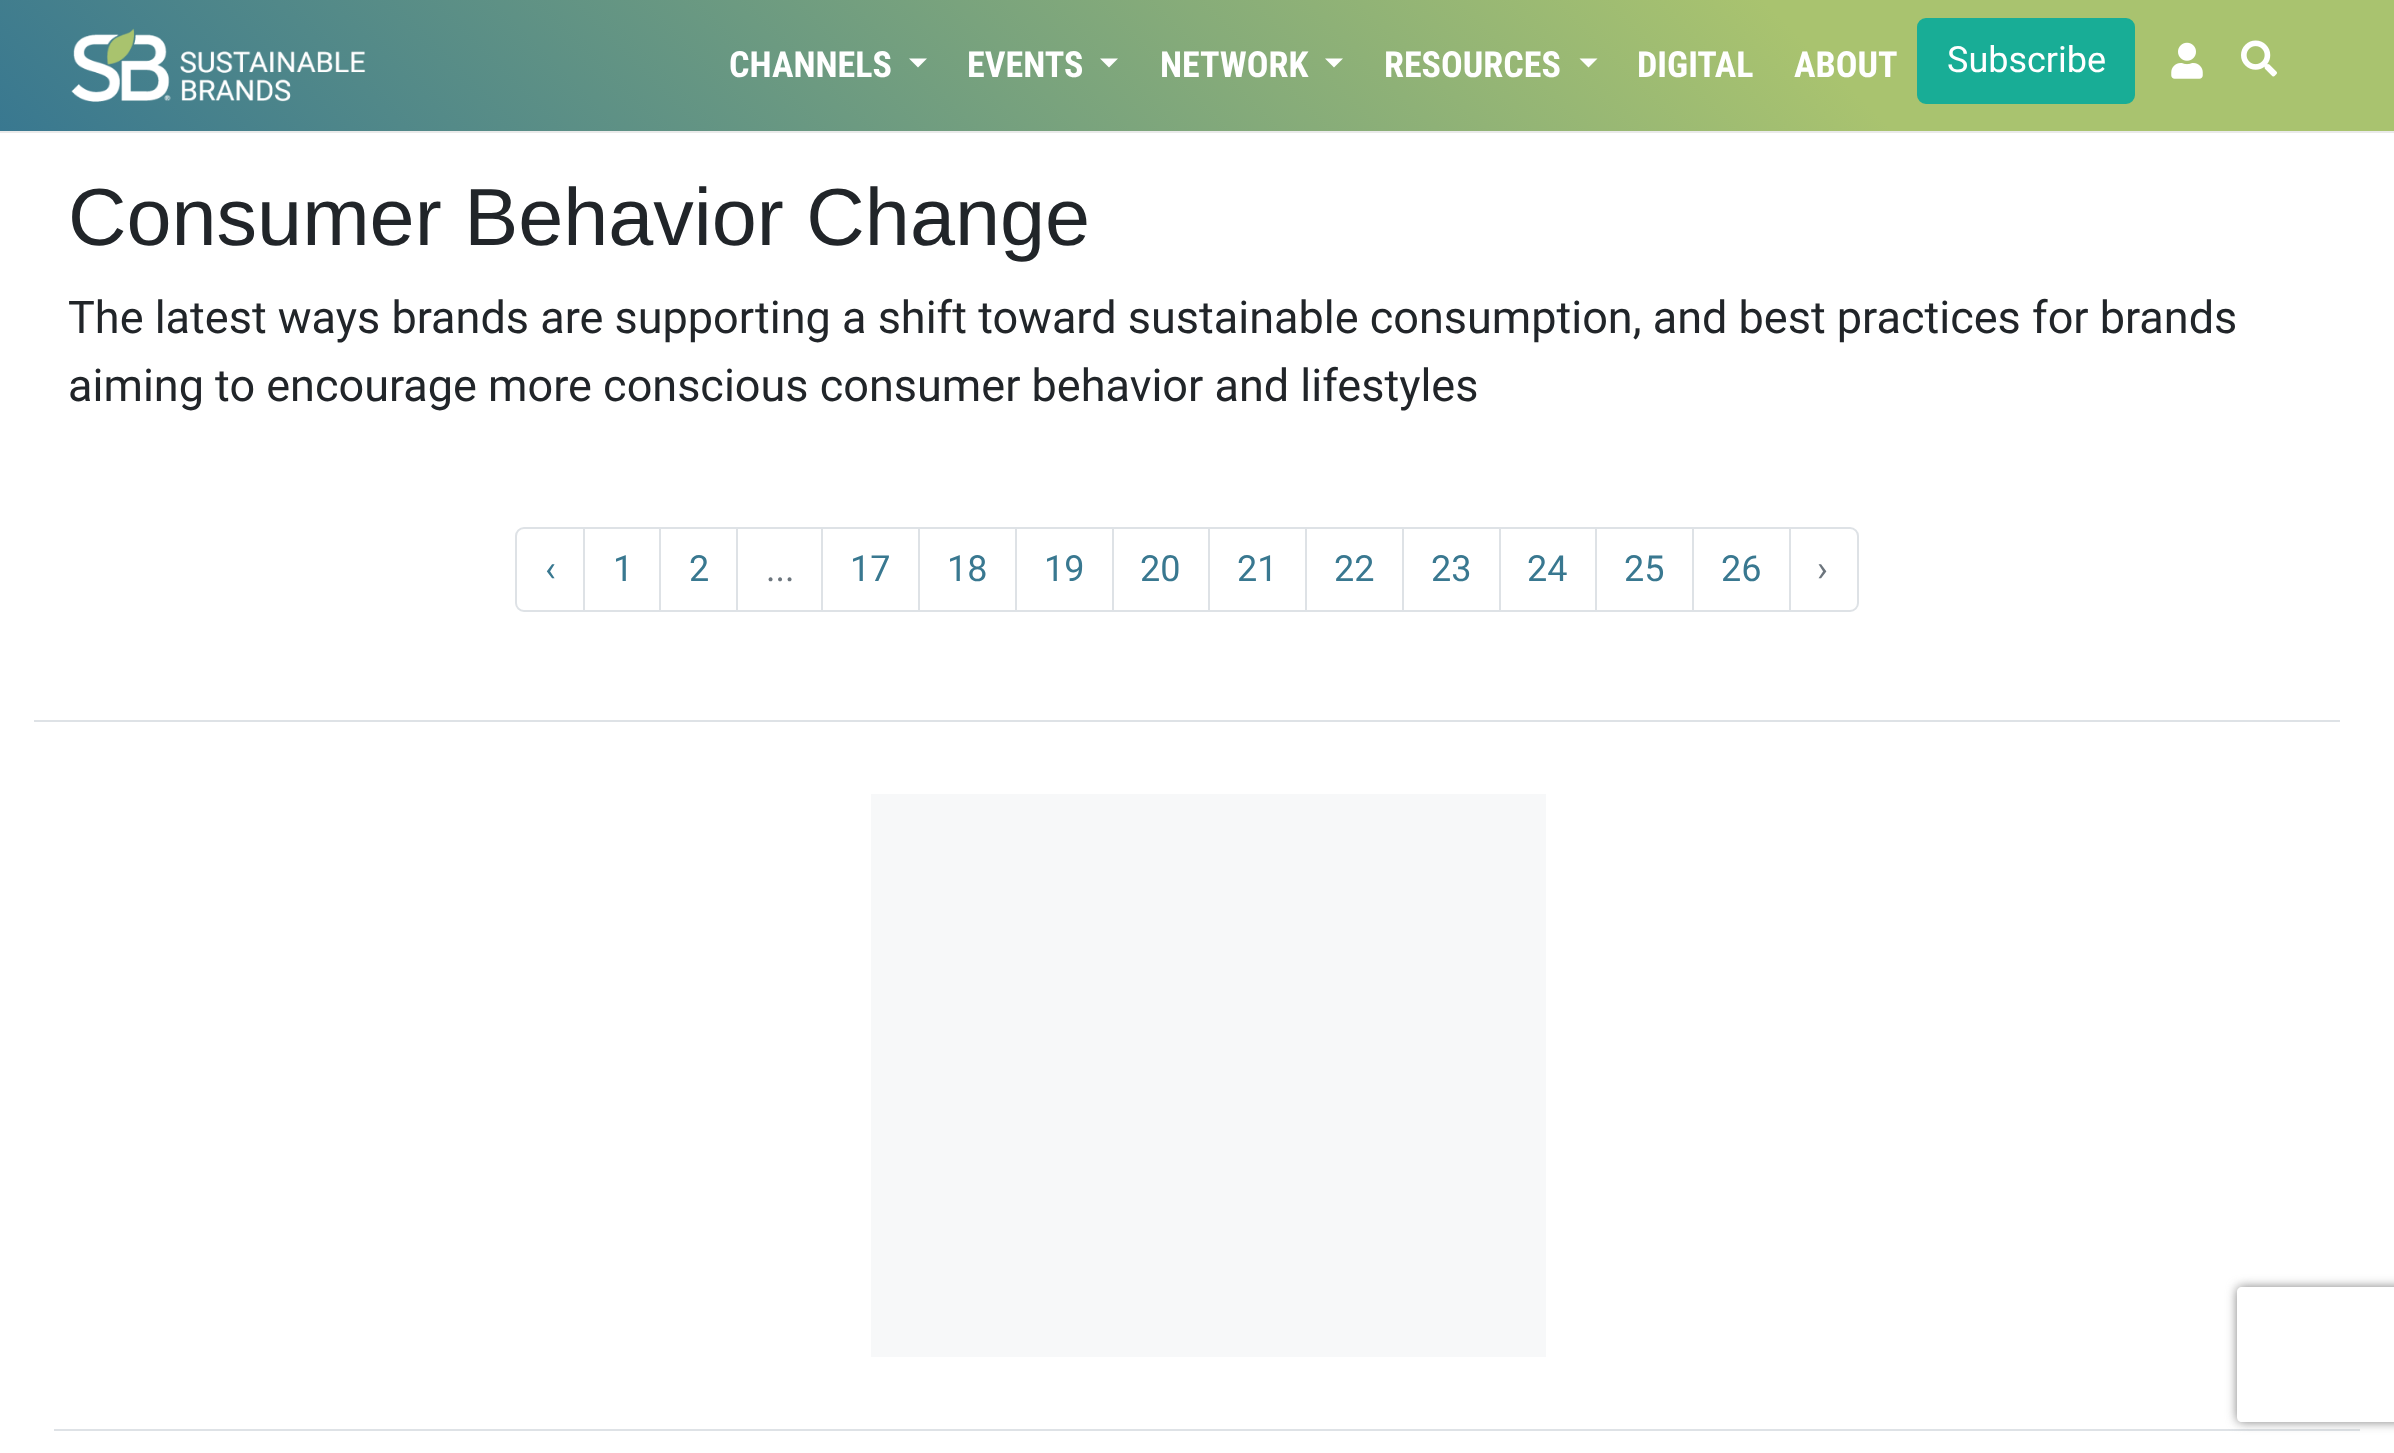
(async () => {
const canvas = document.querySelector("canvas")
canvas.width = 2394
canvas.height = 1453
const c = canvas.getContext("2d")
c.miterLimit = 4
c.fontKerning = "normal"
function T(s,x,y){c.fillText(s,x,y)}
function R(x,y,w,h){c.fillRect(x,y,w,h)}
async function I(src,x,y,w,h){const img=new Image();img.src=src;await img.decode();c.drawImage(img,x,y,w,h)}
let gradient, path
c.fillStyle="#fff"
R(0,0,2394,1453)
gradient = c.createLinearGradient(566,696,1828,-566)
gradient.addColorStop(0,"#397890")
gradient.addColorStop(.75,"#a9c36f")
c.fillStyle = gradient
R(0,0,2394,131)
await I("1.png",71,28,295,74)
c.font="bold 36px Roboto Condensed"
c.fillStyle="#fff"
T("CHANNELS",729,77)
path = new Path2D("M909 58.5h18l-9 9z")
c.fill(path)
T("EVENTS",967,77)
path = new Path2D("M1100 58.5h18l-9 9z")
c.fill(path)
T("NETWORK",1160,77)
path = new Path2D("M1325 58.5h18l-9 9z")
c.fill(path)
T("RESOURCES",1384,77)
path = new Path2D("M1579.5 58.5h18l-9 9z")
c.fill(path)
T("DIGITAL",1637,77)
T("ABOUT",1794,77)
c.fillStyle="#18ad96"
c.beginPath()
c.roundRect(1918,19,216,84,8)
c.fill()
c.strokeStyle="#18ad96"
c.lineWidth=2
c.stroke()
c.font="36px Roboto"
c.fillStyle="#fff"
T("Subscribe",1947,72)
await I("2.png",2171,42,32,37)
await I("3.png",2241,40,36,37)
c.fillStyle="#eaeaea"
R(0,131,2394,2)
c.font="81px Liberation Sans"
c.fillStyle="#212529"
T("Consumer Behavior Change",68,245)
c.font="45px Roboto"
T("The latest ways brands are supporting a shift toward sustainable consumption, and best practices for brands",68,333)
T("aiming to encourage more conscious consumer behavior and lifestyles",68,401)
c.fillStyle="#dee2e6"
R(34,720,2306,2)
c.beginPath()
c.roundRect(516,528,68,83,[8,0,0,8])
c.strokeStyle="#dee2e6"
c.stroke()
c.font="36px Roboto"
c.fillStyle="#397890"
T("‹",545,581)
c.strokeRect(584,528,77,83)
T("1",613,581)
c.fillStyle="#fff"
R(661,529,1,81)
c.strokeRect(660,528,77,83)
c.fillStyle="#397890"
T("2",689,581)
c.strokeRect(737,528,86,83)
c.fillStyle="#fff"
R(823,529,1,81)
c.strokeRect(822,528,97,83)
c.fillStyle="#397890"
T("17",850,581)
c.strokeRect(919,528,97,83)
T("18",947,581)
c.strokeRect(1016,528,97,83)
T("19",1044,581)
c.strokeRect(1113,528,97,83)
T("20",1140,581)
c.fillStyle="#fff"
R(1210,529,1,81)
c.strokeRect(1209,528,97,83)
c.fillStyle="#397890"
T("21",1237,581)
c.strokeRect(1306,528,97,83)
T("22",1334,581)
c.strokeRect(1403,528,97,83)
T("23",1431,581)
c.strokeRect(1500,528,97,83)
T("24",1527,581)
c.fillStyle="#fff"
R(1597,529,1,81)
c.strokeRect(1596,528,97,83)
c.fillStyle="#397890"
T("25",1624,581)
c.strokeRect(1693,528,97,83)
T("26",1721,581)
c.fillStyle="#fff"
c.beginPath()
c.roundRect(1790,528,68,83,[0,8,8,0])
c.fill()
c.stroke()
c.fillStyle="#6c757d"
T("›",1817,581)
T("...",766,581)
c.fillStyle="#dee2e6"
R(54,1429,2306,2)
c.fillStyle="#f7f8f9"
R(871,794,675,563)
c.save()
path = new Path2D("M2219 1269h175v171h-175zm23 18h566c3 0 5 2 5 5v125c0 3-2 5-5 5h-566c-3 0-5-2-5-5v-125c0-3 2-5 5-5z")
c.clip(path,"evenodd")
c.fillStyle="#808080"
c.filter="blur(5.5px)"
c.beginPath()
c.roundRect(2237,1287,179,135,5)
c.fill()
c.filter="none"
c.restore()
})()
